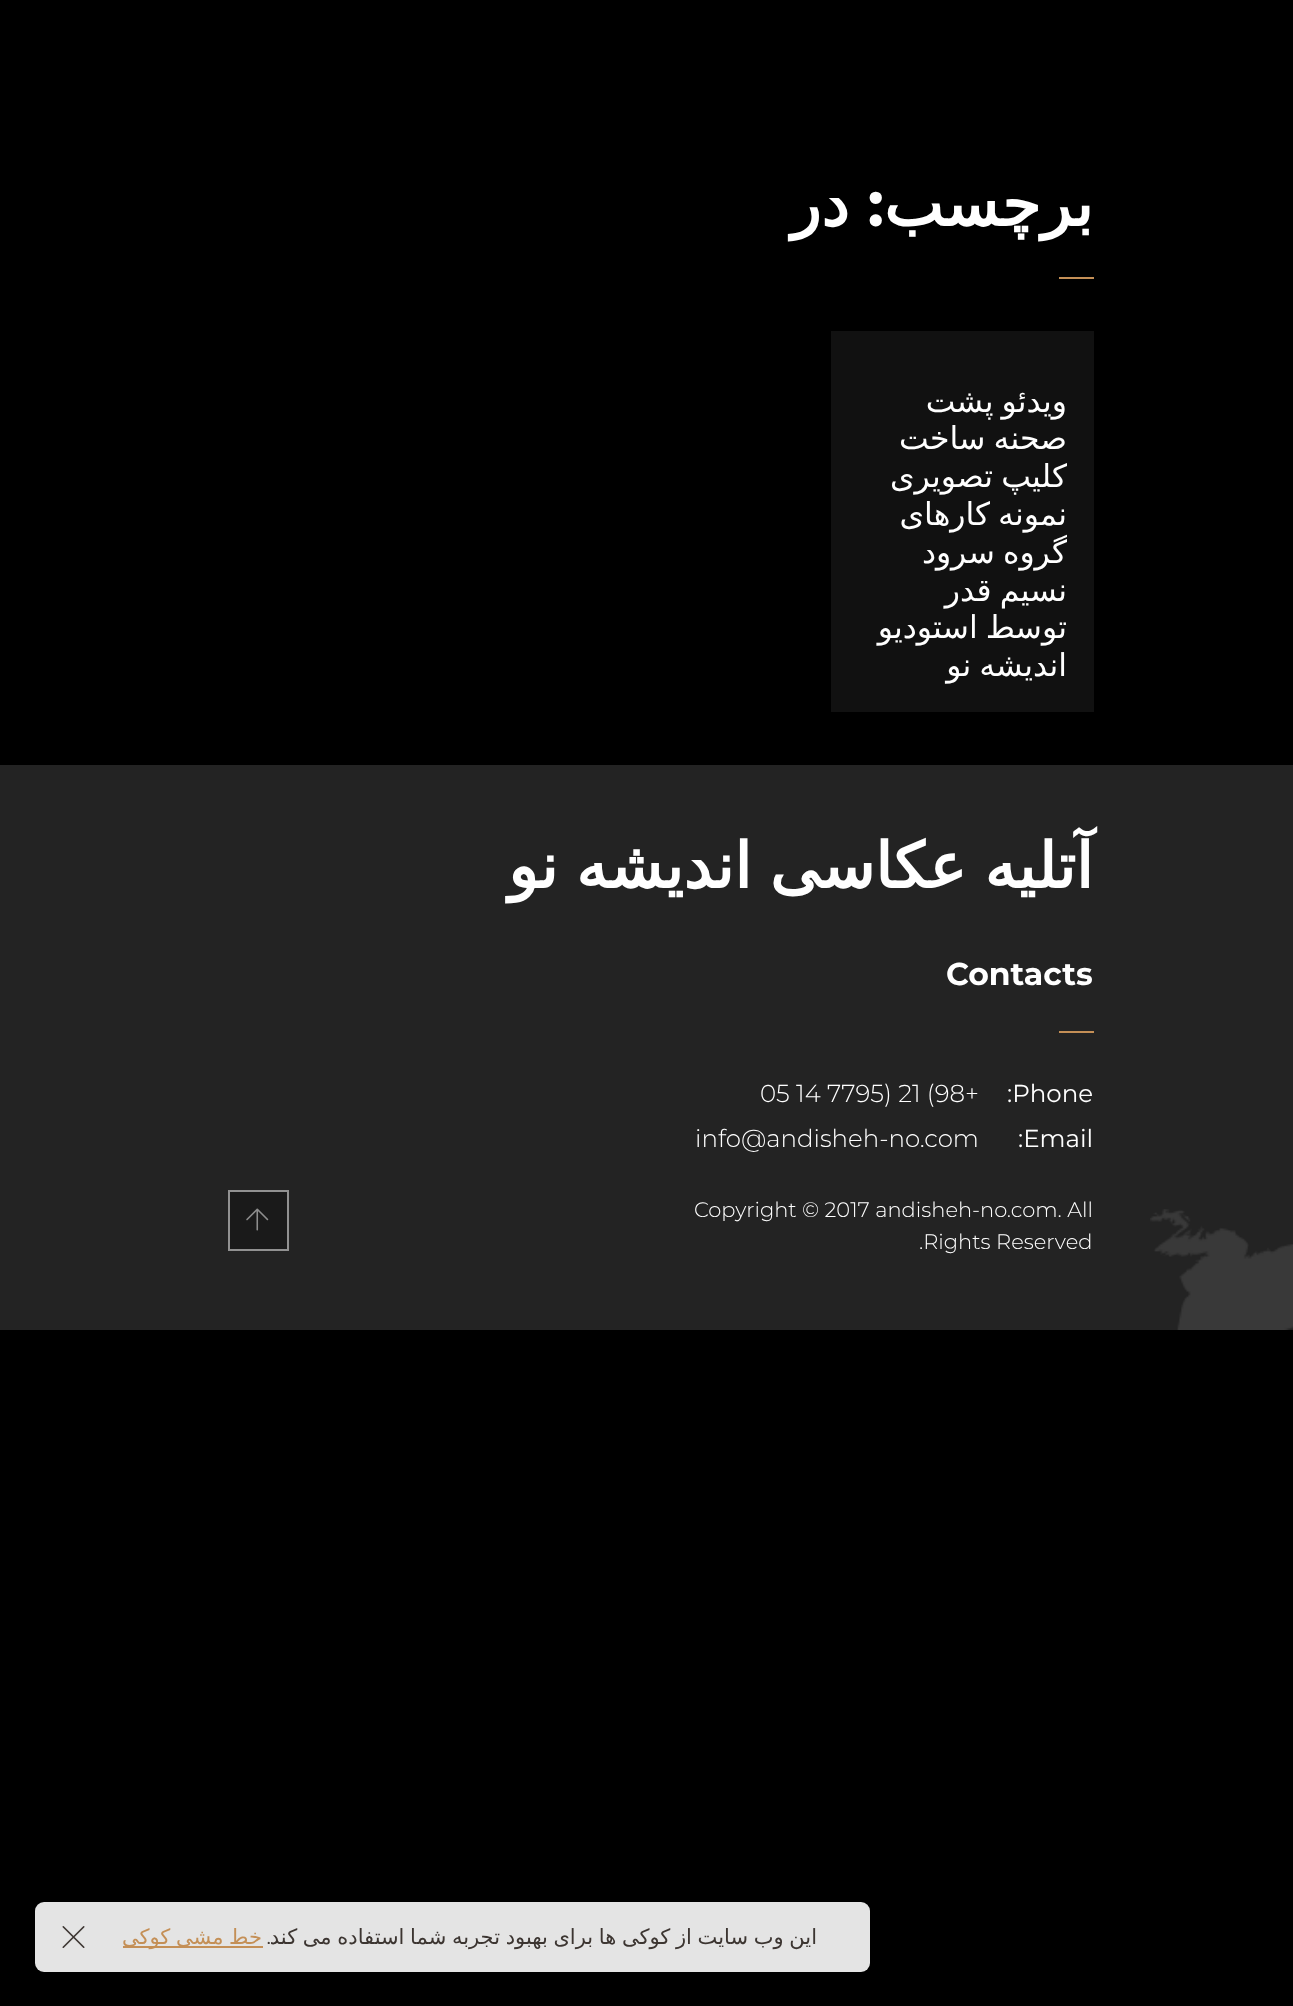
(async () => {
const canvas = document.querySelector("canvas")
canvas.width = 1293
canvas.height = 2006
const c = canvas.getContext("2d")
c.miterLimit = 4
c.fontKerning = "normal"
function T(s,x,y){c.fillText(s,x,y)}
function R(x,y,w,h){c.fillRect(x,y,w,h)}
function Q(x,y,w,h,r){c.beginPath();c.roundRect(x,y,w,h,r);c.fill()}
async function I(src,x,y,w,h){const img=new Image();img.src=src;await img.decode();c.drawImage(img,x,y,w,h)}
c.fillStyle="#000"
R(0,0,1293,2006)
c.direction="rtl"
c.font="bold 63px DejaVu Sans"
c.fillStyle="#fff"
T("برچسب",1093,226)
c.font="bold 63px Montserrat"
T(":",884,226)
c.font="bold 63px DejaVu Sans"
T("در",849,226)
c.fillStyle="#c48f56"
R(1059,277,35,2)
c.fillStyle="#111"
R(831,331,263,381)
c.wordSpacing="-2px"
c.font="31.5px DejaVu Sans"
c.fillStyle="#fff"
T("ویدئو پشت",1067,412)
T("صحنه ساخت",1067,449)
T("کلیپ تصویری",1067,487)
T("نمونه کارهای",1067,525)
T("گروه سرود",1067,563)
T("نسیم قدر",1067,601)
T("توسط استودیو",1067,638)
T("اندیشه نو",1067,676)
c.fillStyle="#232323"
R(0,765,1293,565)
await I("1.png",1150,1209,143,121)
c.font="bold 63px DejaVu Sans"
c.fillStyle="#fff"
T("آتلیه عکاسی اندیشه نو",1093,888)
c.wordSpacing="0px"
c.direction="ltr"
c.font="bold 31.5px Montserrat"
T("Contacts",946,985)
c.fillStyle="#c48f56"
R(1059,1031,35,2)
c.font="24.5px Montserrat"
c.fillStyle="#fff"
T(":Phone",1007,1102)
c.font="300 24.5px Montserrat"
T("05 14 7795) 21 (98+",760,1102)
c.font="24.5px Montserrat"
T(":Email",1018,1147)
c.font="300 24.5px Montserrat"
T("info@andisheh-no.com",695,1147)
c.font="300 21px Montserrat"
T("Copyright © 2017 andisheh-no.com. All",694,1217)
T(".Rights Reserved",919,1249)
c.fillStyle="#1a1a1a"
c.beginPath()
c.rect(229,1191,59,59)
c.fill()
c.strokeStyle="#919191"
c.lineWidth=2
c.stroke()
await I("2.png",246,1208,23,23)
c.fillStyle="#e4e4e4"
Q(35,1902,835,70,9)
c.wordSpacing="-1px"
c.direction="rtl"
c.font="21px DejaVu Sans"
c.fillStyle="#3c3531"
T("این وب سایت از کوکی ها برای بهبود تجربه شما استفاده می کند",817,1944)
c.wordSpacing="0px"
c.font="21px Montserrat"
T(".",271,1944)
c.fillStyle="#c48f56"
R(123,1946,140,2)
c.wordSpacing="-1px"
c.font="21px DejaVu Sans"
T("خط مشی کوکی",262,1944)
await I("3.png",62,1926,23,22)
})()
